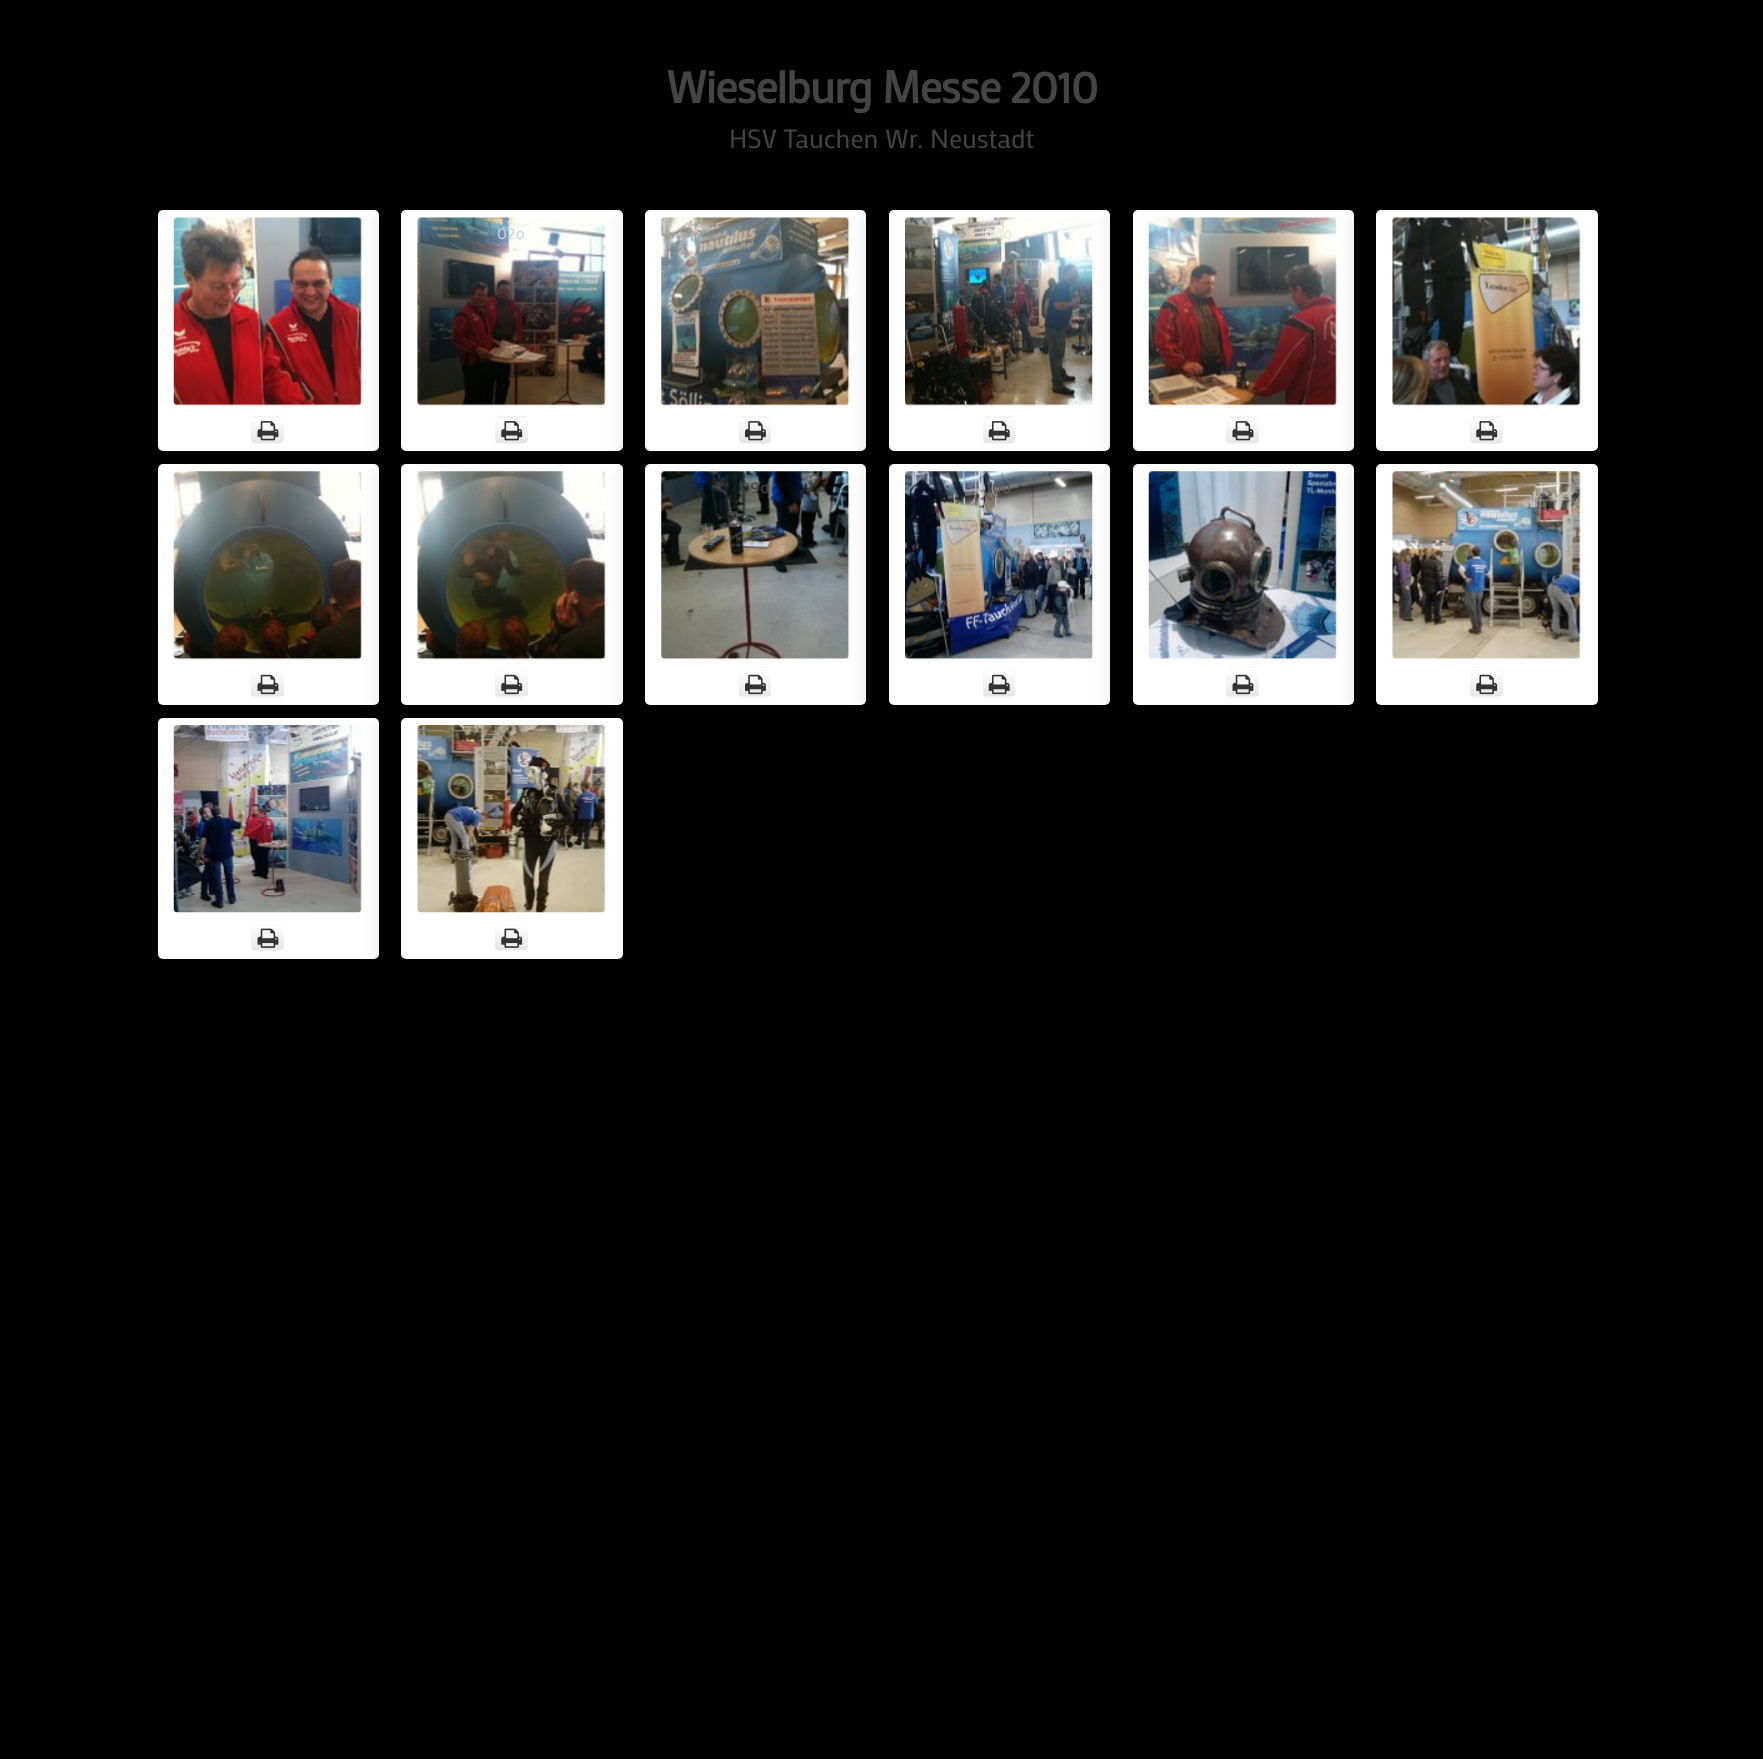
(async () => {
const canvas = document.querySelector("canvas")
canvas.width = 1763
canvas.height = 1759
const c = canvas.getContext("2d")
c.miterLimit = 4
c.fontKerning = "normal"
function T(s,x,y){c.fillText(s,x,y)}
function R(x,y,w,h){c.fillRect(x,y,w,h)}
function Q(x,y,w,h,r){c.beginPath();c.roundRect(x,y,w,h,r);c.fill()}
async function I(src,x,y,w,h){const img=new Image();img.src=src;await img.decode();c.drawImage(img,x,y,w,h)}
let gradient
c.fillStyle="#000"
R(0,0,1763,1759)
c.letterSpacing="-1.25px"
c.font="bold 45px Mako"
c.fillStyle="#444"
T("Wieselburg Messe 2010",666,103)
c.letterSpacing="0px"
c.font="26.25px Mako"
T("HSV Tauchen Wr. Neustadt",729,148)
c.fillStyle="#fff"
Q(158,210,221,241,5)
await I("1.png",173,217,189,189)
c.fillStyle="#f5f5f5"
Q(251,416,33,28,5)
c.save()
c.beginPath()
c.roundRect(251,416,33,28,5)
c.clip()
gradient = c.createLinearGradient(268,418,268,443)
gradient.addColorStop(0,"#fff")
gradient.addColorStop(1,"#e6e6e6")
c.fillStyle = gradient
R(251,418,33,25)
c.restore()
await I("2.png",257,421,22,20)
c.fillStyle="#0000000d"
c.filter="blur(6px)"
c.beginPath()
c.roundRect(373,214,221,241,5)
c.fill()
c.filter="none"
c.fillStyle="#fff"
Q(401,210,222,241,5)
await I("3.png",417,217,189,189)
c.letterSpacing="0.5px"
c.font="16px Mako"
c.fillStyle="#c6d5dd"
T("02o",497,239)
c.fillStyle="#f5f5f5"
Q(495,416,33,28,5)
c.save()
c.beginPath()
c.roundRect(495,416,33,28,5)
c.clip()
gradient = c.createLinearGradient(511,418,511,443)
gradient.addColorStop(0,"#fff")
gradient.addColorStop(1,"#e6e6e6")
c.fillStyle = gradient
R(495,418,33,25)
c.restore()
await I("4.png",501,421,22,20)
c.fillStyle="#0000000d"
c.filter="blur(6px)"
c.beginPath()
c.roundRect(616,214,222,241,5)
c.fill()
c.filter="none"
c.fillStyle="#fff"
Q(645,210,221,241,5)
await I("5.png",661,217,189,189)
c.fillStyle="#f5f5f5"
Q(739,416,32,28,5)
c.save()
c.beginPath()
c.roundRect(739,416,32,28,5)
c.clip()
gradient = c.createLinearGradient(755,418,755,443)
gradient.addColorStop(0,"#fff")
gradient.addColorStop(1,"#e6e6e6")
c.fillStyle = gradient
R(739,418,32,25)
c.restore()
await I("6.png",745,421,21,20)
c.fillStyle="#0000000d"
c.filter="blur(6px)"
c.beginPath()
c.roundRect(860,214,221,241,5)
c.fill()
c.filter="none"
c.fillStyle="#fff"
Q(889,210,221,241,5)
await I("7.png",905,217,188,189)
c.fillStyle="#e7e6dd"
T("04o",984,239)
c.fillStyle="#f5f5f5"
Q(983,416,32,28,5)
c.save()
c.beginPath()
c.roundRect(983,416,32,28,5)
c.clip()
gradient = c.createLinearGradient(999,418,999,443)
gradient.addColorStop(0,"#fff")
gradient.addColorStop(1,"#e6e6e6")
c.fillStyle = gradient
R(983,418,32,25)
c.restore()
await I("8.png",988,421,22,20)
c.fillStyle="#0000000d"
c.filter="blur(6px)"
c.beginPath()
c.roundRect(1104,214,221,241,5)
c.fill()
c.filter="none"
c.fillStyle="#fff"
Q(1133,210,221,241,5)
await I("9.png",1148,217,189,189)
c.fillStyle="#f5f5f5"
Q(1226,416,33,28,5)
c.save()
c.beginPath()
c.roundRect(1226,416,33,28,5)
c.clip()
gradient = c.createLinearGradient(1243,418,1243,443)
gradient.addColorStop(0,"#fff")
gradient.addColorStop(1,"#e6e6e6")
c.fillStyle = gradient
R(1226,418,33,25)
c.restore()
await I("2.png",1232,421,22,20)
c.fillStyle="#0000000d"
c.filter="blur(6px)"
c.beginPath()
c.roundRect(1348,214,221,241,5)
c.fill()
c.filter="none"
c.fillStyle="#fff"
Q(1376,210,222,241,5)
await I("10.png",1392,217,189,189)
c.fillStyle="#f5f5f5"
Q(1470,416,33,28,5)
c.save()
c.beginPath()
c.roundRect(1470,416,33,28,5)
c.clip()
gradient = c.createLinearGradient(1486,418,1486,443)
gradient.addColorStop(0,"#fff")
gradient.addColorStop(1,"#e6e6e6")
c.fillStyle = gradient
R(1470,418,33,25)
c.restore()
await I("4.png",1476,421,22,20)
c.fillStyle="#fff"
Q(158,464,221,241,5)
await I("11.png",173,471,189,189)
c.fillStyle="#f5f5f5"
Q(251,670,33,28,5)
c.save()
c.beginPath()
c.roundRect(251,670,33,28,5)
c.clip()
gradient = c.createLinearGradient(268,671,268,696)
gradient.addColorStop(0,"#fff")
gradient.addColorStop(1,"#e6e6e6")
c.fillStyle = gradient
R(251,671,33,25)
c.restore()
await I("12.png",257,674,22,21)
c.fillStyle="#0000000d"
c.filter="blur(6px)"
c.beginPath()
c.roundRect(373,468,221,241,5)
c.fill()
c.filter="none"
c.fillStyle="#fff"
Q(401,464,222,241,5)
await I("13.png",417,471,189,189)
c.fillStyle="#f5f5f5"
Q(495,670,33,28,5)
c.save()
c.beginPath()
c.roundRect(495,670,33,28,5)
c.clip()
gradient = c.createLinearGradient(511,671,511,696)
gradient.addColorStop(0,"#fff")
gradient.addColorStop(1,"#e6e6e6")
c.fillStyle = gradient
R(495,671,33,25)
c.restore()
await I("14.png",501,674,22,21)
c.fillStyle="#0000000d"
c.filter="blur(6px)"
c.beginPath()
c.roundRect(616,468,222,241,5)
c.fill()
c.filter="none"
c.fillStyle="#fff"
Q(645,464,221,241,5)
await I("15.png",661,471,189,189)
c.fillStyle="#444"
T("09o",740,493)
c.fillStyle="#f5f5f5"
Q(739,670,32,28,5)
c.save()
c.beginPath()
c.roundRect(739,670,32,28,5)
c.clip()
gradient = c.createLinearGradient(755,671,755,696)
gradient.addColorStop(0,"#fff")
gradient.addColorStop(1,"#e6e6e6")
c.fillStyle = gradient
R(739,671,32,25)
c.restore()
await I("16.png",745,674,21,21)
c.fillStyle="#0000000d"
c.filter="blur(6px)"
c.beginPath()
c.roundRect(860,468,221,241,5)
c.fill()
c.filter="none"
c.fillStyle="#fff"
Q(889,464,221,241,5)
await I("17.png",905,471,188,189)
c.fillStyle="#5b5d62"
T("10o",986,493)
c.fillStyle="#f5f5f5"
Q(983,670,32,28,5)
c.save()
c.beginPath()
c.roundRect(983,670,32,28,5)
c.clip()
gradient = c.createLinearGradient(999,671,999,696)
gradient.addColorStop(0,"#fff")
gradient.addColorStop(1,"#e6e6e6")
c.fillStyle = gradient
R(983,671,32,25)
c.restore()
await I("18.png",988,674,22,21)
c.fillStyle="#0000000d"
c.filter="blur(6px)"
c.beginPath()
c.roundRect(1104,468,221,241,5)
c.fill()
c.filter="none"
c.fillStyle="#fff"
Q(1133,464,221,241,5)
await I("19.png",1148,471,189,189)
c.fillStyle="#f5f5f5"
Q(1226,670,33,28,5)
c.save()
c.beginPath()
c.roundRect(1226,670,33,28,5)
c.clip()
gradient = c.createLinearGradient(1243,671,1243,696)
gradient.addColorStop(0,"#fff")
gradient.addColorStop(1,"#e6e6e6")
c.fillStyle = gradient
R(1226,671,33,25)
c.restore()
await I("12.png",1232,674,22,21)
c.fillStyle="#0000000d"
c.filter="blur(6px)"
c.beginPath()
c.roundRect(1348,468,221,241,5)
c.fill()
c.filter="none"
c.fillStyle="#fff"
Q(1376,464,222,241,5)
await I("20.png",1392,471,189,189)
c.fillStyle="#f5f5f5"
Q(1470,670,33,28,5)
c.save()
c.beginPath()
c.roundRect(1470,670,33,28,5)
c.clip()
gradient = c.createLinearGradient(1486,671,1486,696)
gradient.addColorStop(0,"#fff")
gradient.addColorStop(1,"#e6e6e6")
c.fillStyle = gradient
R(1470,671,33,25)
c.restore()
await I("14.png",1476,674,22,21)
c.fillStyle="#fff"
Q(158,718,221,241,5)
await I("21.png",173,725,189,188)
c.fillStyle="#f5f5f5"
Q(251,924,33,27,5)
c.save()
c.beginPath()
c.roundRect(251,924,33,27,5)
c.clip()
gradient = c.createLinearGradient(268,925,268,950)
gradient.addColorStop(0,"#fff")
gradient.addColorStop(1,"#e6e6e6")
c.fillStyle = gradient
R(251,925,33,25)
c.restore()
await I("22.png",257,928,22,20)
c.fillStyle="#0000000d"
c.filter="blur(6px)"
c.beginPath()
c.roundRect(373,721,221,242,5)
c.fill()
c.filter="none"
c.fillStyle="#fff"
Q(401,718,222,241,5)
await I("23.png",417,725,189,188)
c.fillStyle="#f5f5f5"
Q(495,924,33,27,5)
c.save()
c.beginPath()
c.roundRect(495,924,33,27,5)
c.clip()
gradient = c.createLinearGradient(511,925,511,950)
gradient.addColorStop(0,"#fff")
gradient.addColorStop(1,"#e6e6e6")
c.fillStyle = gradient
R(495,925,33,25)
c.restore()
await I("24.png",501,928,22,20)
})()
